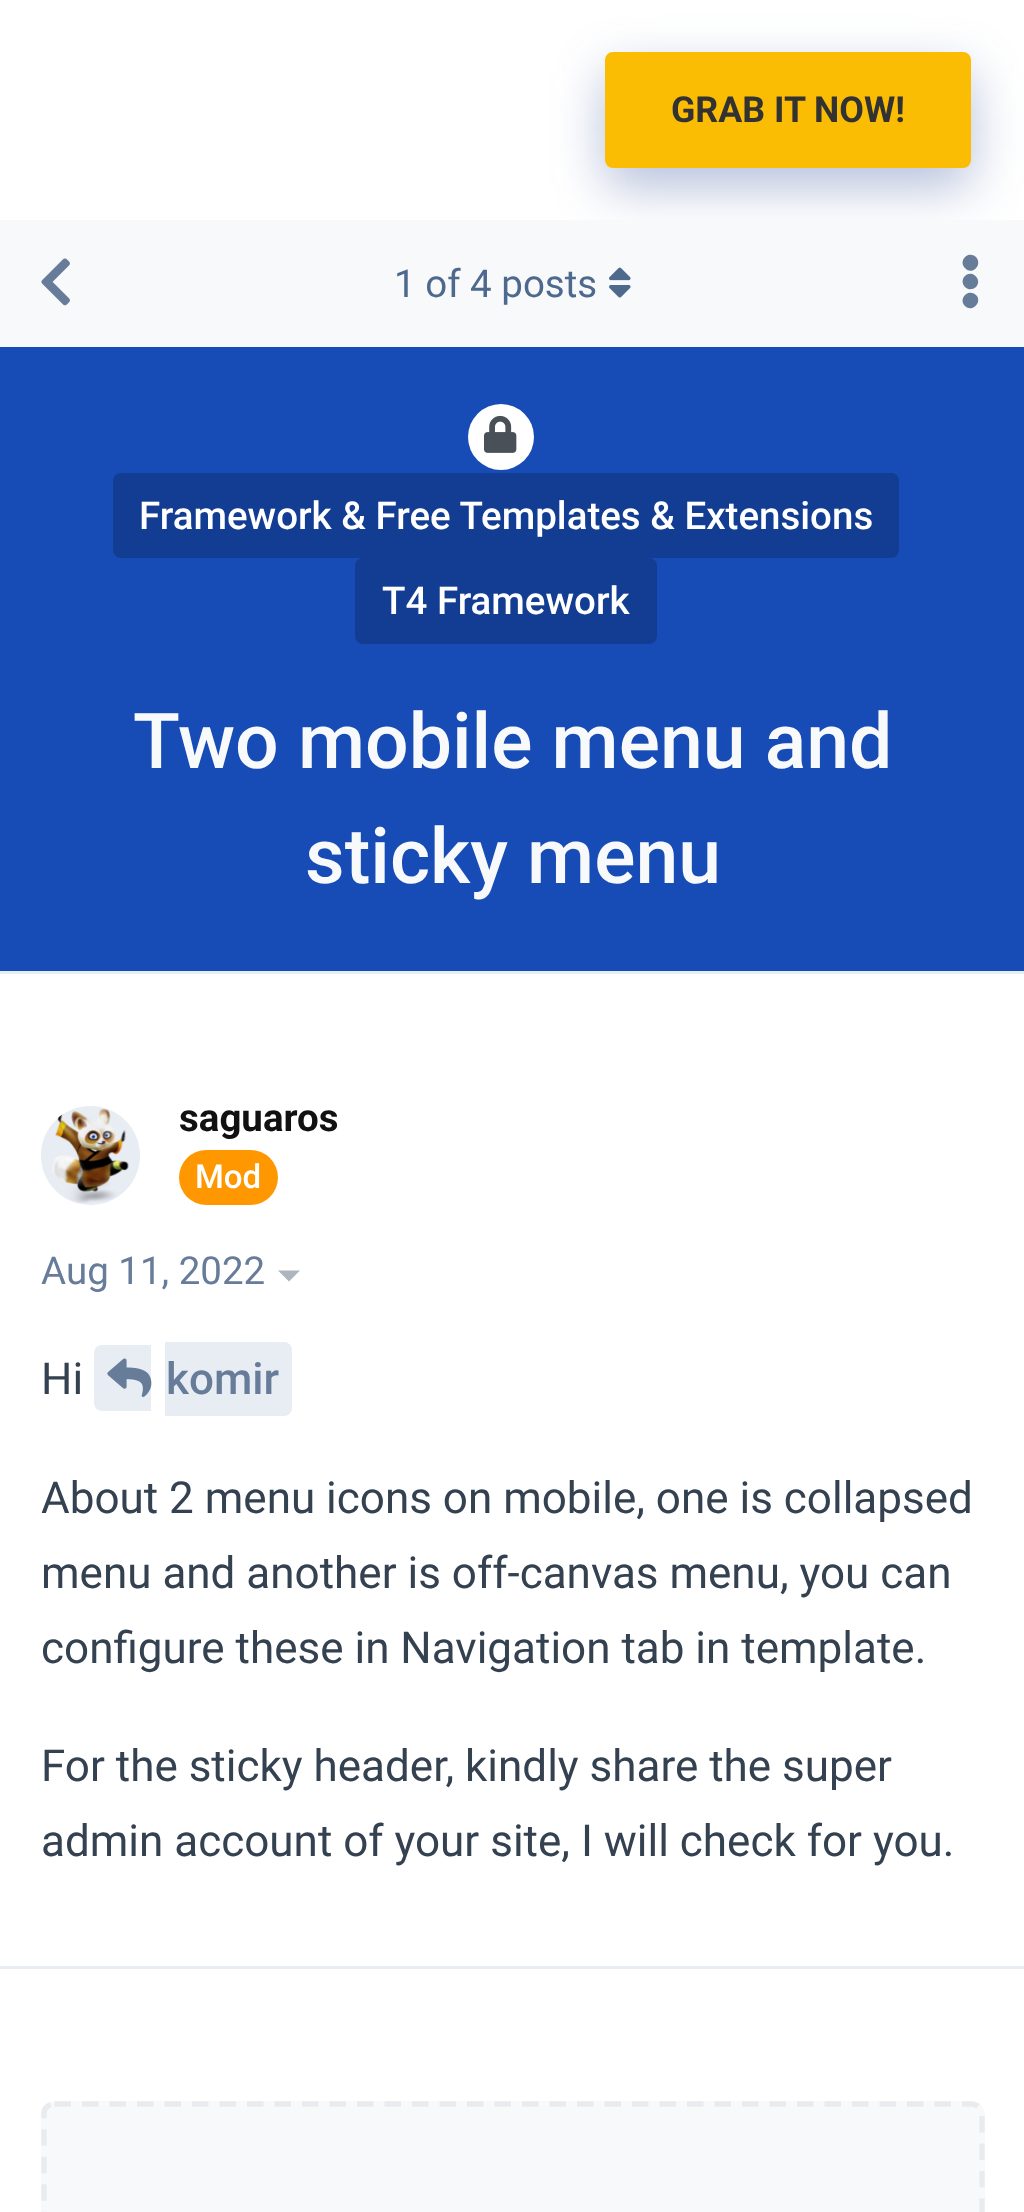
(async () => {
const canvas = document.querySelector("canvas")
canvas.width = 1024
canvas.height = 2212
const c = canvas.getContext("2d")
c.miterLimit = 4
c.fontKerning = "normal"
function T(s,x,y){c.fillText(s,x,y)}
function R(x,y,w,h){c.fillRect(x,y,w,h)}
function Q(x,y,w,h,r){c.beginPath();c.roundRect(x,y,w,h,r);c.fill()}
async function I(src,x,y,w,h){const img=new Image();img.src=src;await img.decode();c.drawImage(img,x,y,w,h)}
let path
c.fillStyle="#fff"
R(0,0,1024,2212)
c.fillStyle="#25449357"
c.filter="blur(26px)"
c.beginPath()
c.roundRect(605,72,366,115,8)
c.fill()
c.filter="none"
c.fillStyle="#fbbc04"
c.beginPath()
c.roundRect(608,55,360,110,5)
c.fill()
c.strokeStyle="#fbbc04"
c.lineWidth=6
c.stroke()
c.font="bold 35.75px Roboto"
c.fillStyle="#323232"
T("GRAB IT NOW!",671,122)
c.fillStyle="#f8f9fa"
R(0,220,1024,127)
await I("1.png",41,258,29,48)
c.fillStyle="#e8ecf3"
R(0,971,1024,3)
c.font="38.5px Roboto"
c.fillStyle="#4d698e"
T("1 of 4 posts",394,297)
await I("2.png",609,267,22,31)
c.fillStyle="#667c99"
path = new Path2D("M965 276c7-7 18 4 11 11c-8 7-18-4-11-11zm0-8c-7-7 3-18 11-11c7 8-4 19-11 11zm0 38c-7-7 3-18 11-11c7 7-4 18-11 11z")
c.fill(path)
c.fillStyle="#e8ecf3"
R(0,1966,1024,3)
c.beginPath()
c.arc(90.5,1155.5,49.5,0,7)
c.fill()
await I("3.png",52,1108,77,95)
c.font="bold 38.5px Roboto"
c.fillStyle="#111"
T("saguaros",179,1131)
c.fillStyle="#ff9800"
Q(179,1150,99,55,27.5)
c.font="500 33px Roboto"
c.fillStyle="#fff"
T("Mod",195,1188)
c.font="38.5px Roboto"
c.fillStyle="#667c99"
T("Aug 11, 2022",41,1284)
c.fillStyle="#adb5bd"
path = new Path2D("M278 1270.5h22l-11 11z")
c.fill(path)
c.font="44px Roboto"
c.fillStyle="#344150"
T("Hi",41,1394)
c.fillStyle="#e8ecf3"
c.beginPath()
c.roundRect(94,1345,57,66,[8,0,0,8])
c.fill()
c.beginPath()
c.roundRect(165,1342,127,74,[0,8,8,0])
c.fill()
await I("4.png",107,1358,45,39)
c.font="500 44px Roboto"
c.fillStyle="#667c99"
T("komir",166,1394)
c.font="44px Roboto"
c.fillStyle="#344150"
T("About 2 menu icons on mobile, one is collapsed",41,1513)
T("menu and another is off-canvas menu, you can",41,1588)
T("configure these in Navigation tab in template.",41,1663)
T("For the sticky header, kindly share the super",41,1781)
T("admin account of your site, I will check for you.",41,1856)
c.fillStyle="#f8f9fa"
Q(41,2101,944,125,14)
path = new Path2D("M54.5 2104h917c5.5 0 10.5 4.5 10.5 10v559.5c0 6-5 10.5-10.5 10.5h-917c-6 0-10.5-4.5-10.5-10.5v-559.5c0-5.5 4.5-10 10.5-10z")
c.strokeStyle="#e9ecef"
c.lineWidth=5.5
c.setLineDash([16.5,11])
c.stroke(path)
c.fillStyle="#174cb7"
R(0,347,1024,624)
c.fillStyle="#fff"
c.beginPath()
c.arc(501,437,33,0,7)
c.fill()
await I("5.png",484,415,33,38)
c.fillStyle="#123d92"
Q(113,473,786,85,8)
c.font="500 38.5px Roboto"
c.fillStyle="#fff"
T("Framework & Free Templates & Extensions",139,529)
c.fillStyle="#123d92"
Q(355,558,302,86,8)
c.fillStyle="#fff"
T("T4 Framework",382,614)
c.font="500 77px Roboto"
c.fillStyle="#f8f9fa"
T("Two mobile menu and",133,768)
T("sticky menu",305,883)
})()
